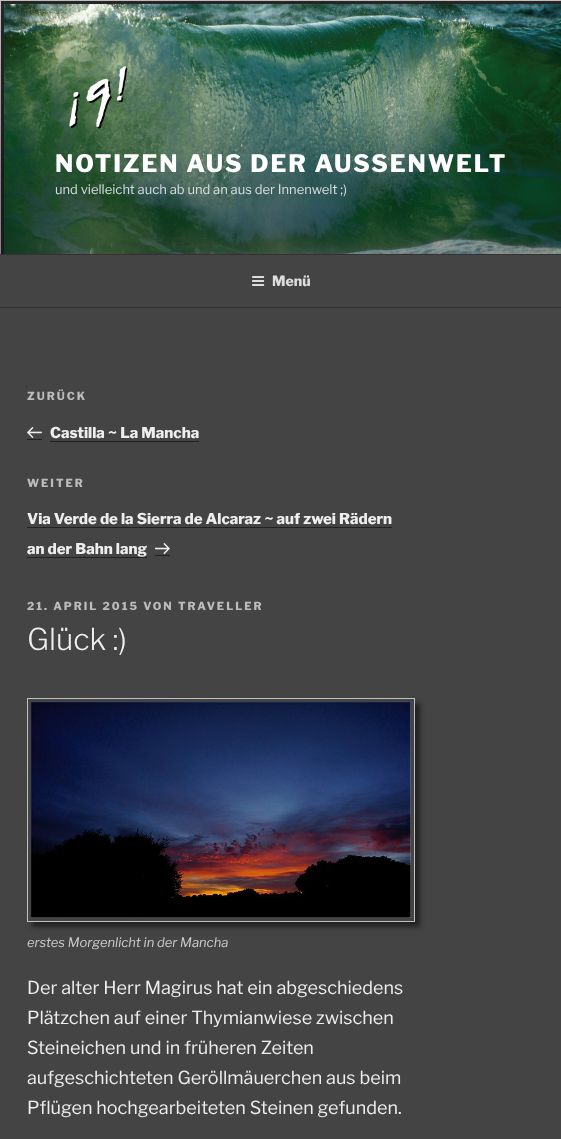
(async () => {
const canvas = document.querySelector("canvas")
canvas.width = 561
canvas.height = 1139
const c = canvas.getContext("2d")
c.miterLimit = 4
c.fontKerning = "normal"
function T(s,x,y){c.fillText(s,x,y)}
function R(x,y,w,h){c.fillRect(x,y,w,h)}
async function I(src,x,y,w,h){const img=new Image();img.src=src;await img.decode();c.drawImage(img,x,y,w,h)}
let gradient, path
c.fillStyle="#444"
R(0,0,561,1139)
c.fillStyle="#262626"
R(1,1,560,253)
c.strokeStyle="#c0c0c0"
c.strokeRect(.5,.5,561,259)
await I("1.png",4,4,557,250)
gradient = c.createLinearGradient(281,0,281,254)
gradient.addColorStop(0,"#00000000")
gradient.addColorStop(.75,"#0000004d")
gradient.addColorStop(1,"#0000004d")
c.fillStyle = gradient
R(0,14,561,240)
await I("2.png",69,66,59,63)
c.letterSpacing="1.9px"
c.font="800 24px Libre Franklin"
c.fillStyle="#fff"
T("NOTIZEN AUS DER AUSSENWELT",55,172)
c.letterSpacing="0px"
c.font="13px Libre Franklin"
c.fillStyle="#d7dedc"
T("und vielleicht auch ab und an aus der Innenwelt ;)",55,194)
c.fillStyle="#444"
R(0,255,561,5)
c.fillStyle="#333"
R(0,254,561,1)
R(0,307,561,1)
await I("3.png",252,276,13,10)
c.font="800 14px Libre Franklin"
c.fillStyle="#ddd"
T("Menü",272,286)
c.fillStyle="#222"
R(26,386,1,1)
R(27,439,15,1)
R(50,441,149,1)
c.letterSpacing="2px"
c.font="800 11px Libre Franklin"
c.fillStyle="#bbb"
T("ZURÜCK",27,400)
await I("4.png",27,427,15,11)
c.letterSpacing="0px"
c.font="800 15px Libre Franklin"
c.fillStyle="#eee"
T("Castilla ~ La Mancha",50,438)
c.fillStyle="#222"
R(26,473,1,1)
R(27,527,365,1)
R(27,557,120,1)
R(155,555,15,1)
c.letterSpacing="2px"
c.font="800 11px Libre Franklin"
c.fillStyle="#bbb"
T("WEITER",27,487)
c.letterSpacing="0px"
c.font="800 15px Libre Franklin"
c.fillStyle="#eee"
T("Via Verde de la Sierra de Alcaraz ~ auf zwei Rädern",27,524)
T("an der Bahn lang",27,554)
await I("5.png",155,543,15,12)
c.letterSpacing="2px"
c.font="800 11px Libre Franklin"
c.fillStyle="#bbb"
T("21. APRIL 2015 VON TRAVELLER",27,610)
c.letterSpacing="0px"
c.font="300 30px Libre Franklin"
c.fillStyle="#eee"
T("Glück :)",27,650)
c.save()
path = new Path2D("M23 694h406v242h-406zm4 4h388v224h-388z")
c.clip(path,"evenodd")
c.fillStyle="#222"
c.filter="blur(2.5px)"
c.beginPath()
c.rect(32,703,388,224)
c.fill()
c.filter="none"
c.restore()
c.strokeRect(27.5,698.5,387,223)
await I("6.png",31,702,380,216)
c.font="italic 13px Libre Franklin"
c.fillStyle="#ccc"
T("erstes Morgenlicht in der Mancha",27,947)
c.font="18px Libre Franklin"
c.fillStyle="#eee"
T("Der alter Herr Magirus hat ein abgeschiedens",27,994)
T("Plätzchen auf einer Thymianwiese zwischen",27,1024)
T("Steineichen und in früheren Zeiten",27,1054)
T("aufgeschichteten Geröllmäuerchen aus beim",27,1084)
T("Pflügen hochgearbeiteten Steinen gefunden.",27,1114)
})()
